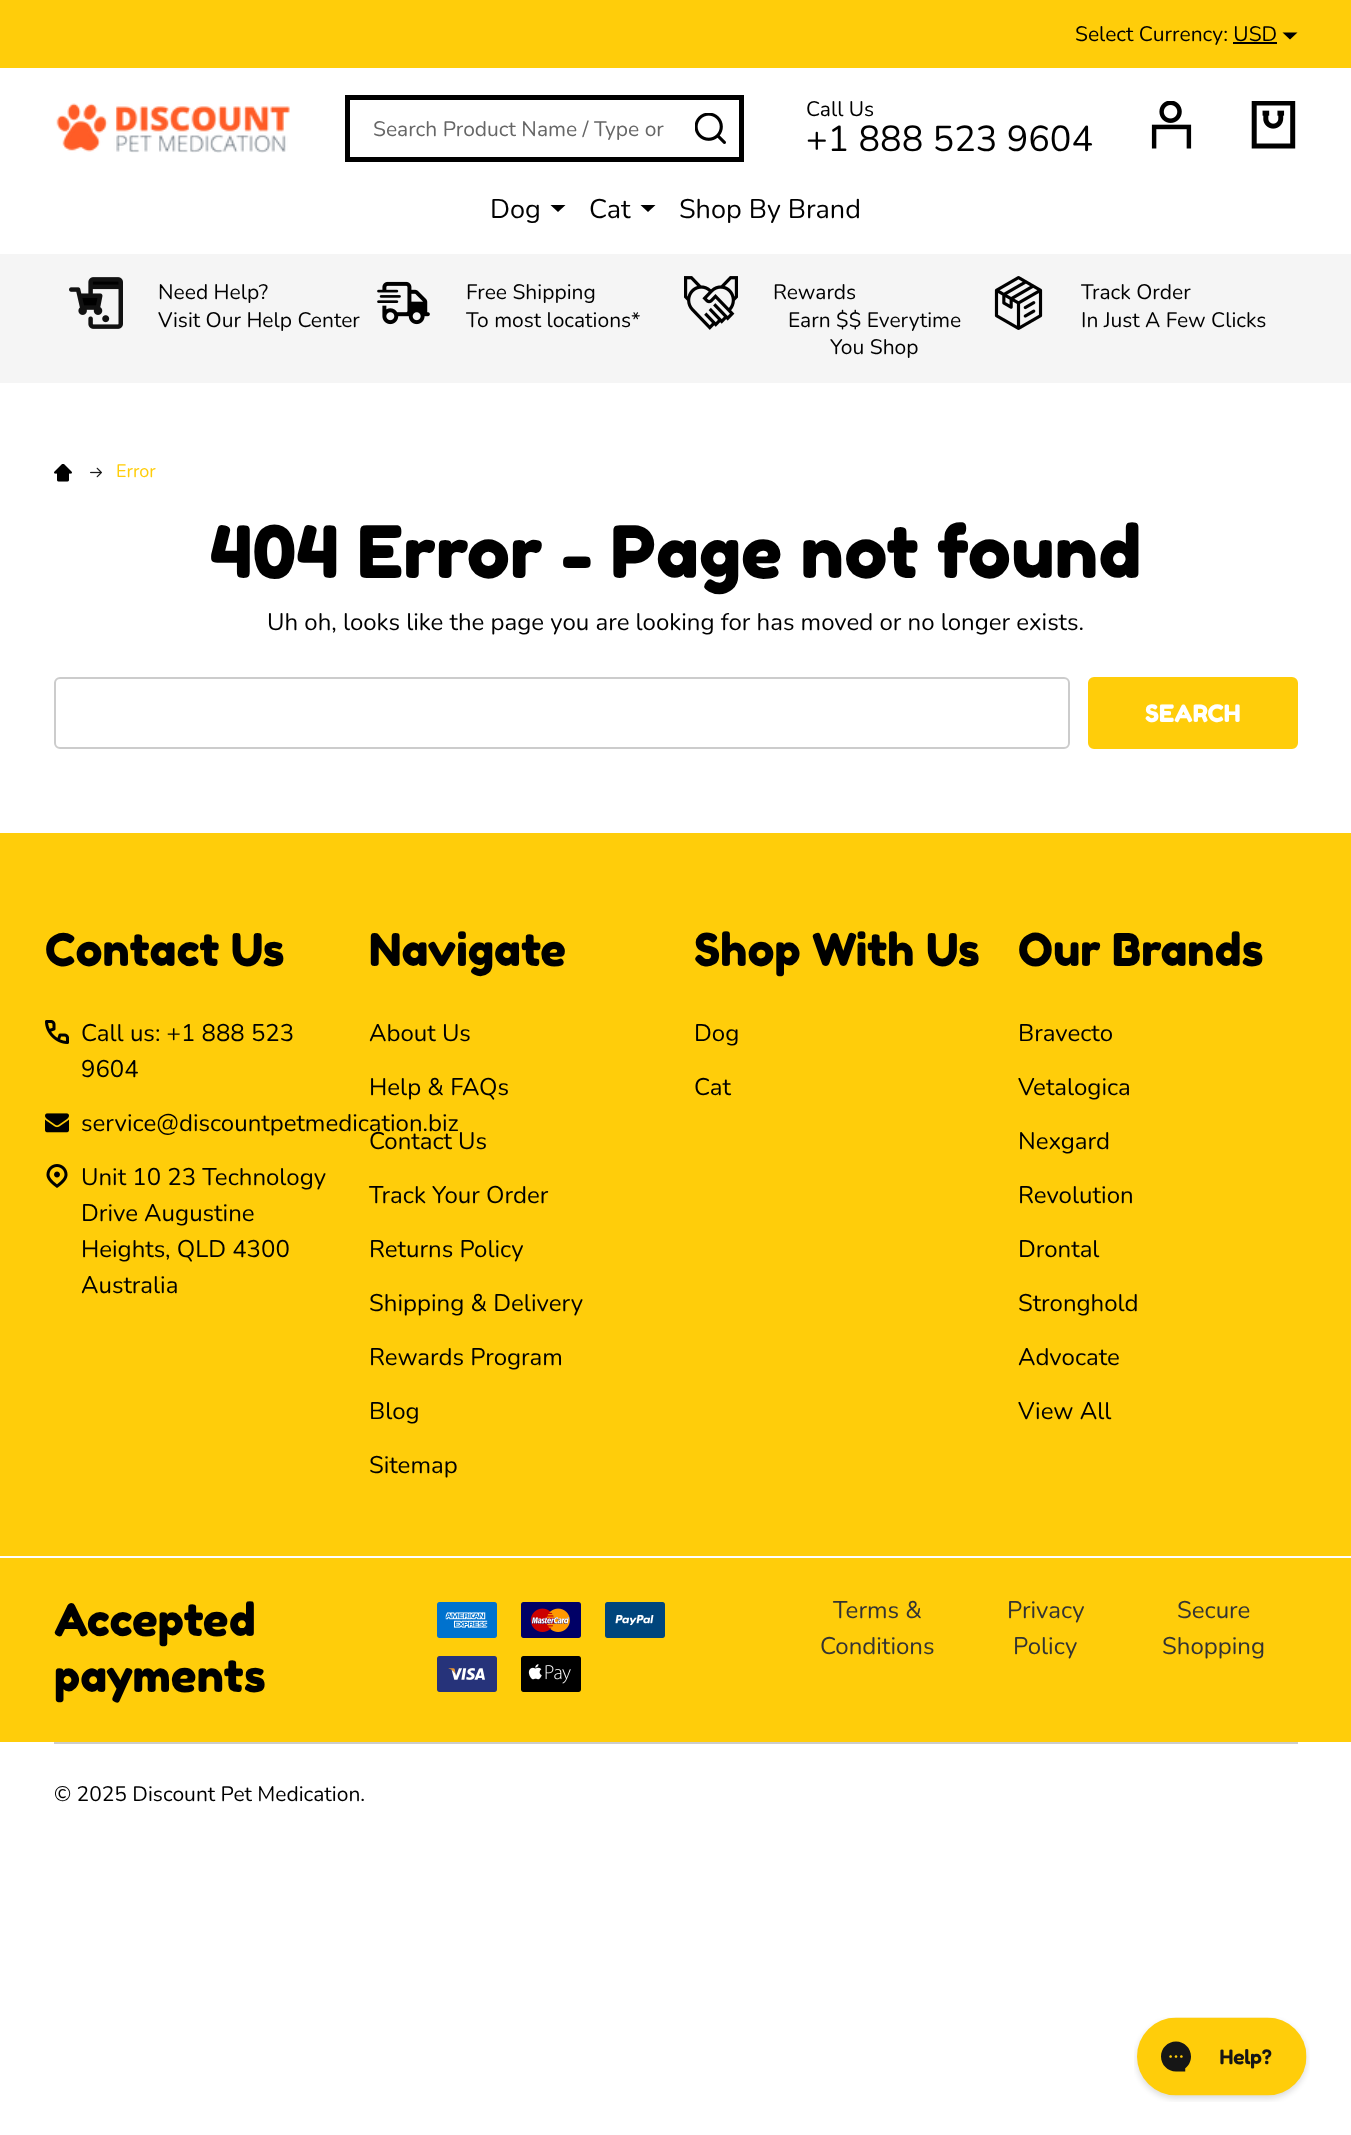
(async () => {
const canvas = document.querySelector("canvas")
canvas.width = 1351
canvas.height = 2135
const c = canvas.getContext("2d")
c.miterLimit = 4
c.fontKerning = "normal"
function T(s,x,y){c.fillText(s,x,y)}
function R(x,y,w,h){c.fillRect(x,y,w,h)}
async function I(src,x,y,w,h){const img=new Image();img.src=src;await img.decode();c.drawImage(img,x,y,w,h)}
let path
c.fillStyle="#fff"
R(0,0,1351,2135)
c.fillStyle="#ffcd0a"
R(0,0,1351,68)
c.font="21px Nunito"
c.fillStyle="#000"
T("Select Currency: USD",1075,41)
path = new Path2D("M1282.5 32.5l7.5 7l7.5-7z")
c.fill(path)
R(1233,42,44,2)
await I("1.png",56,103,234,50)
c.strokeStyle="#000"
c.lineWidth=5
c.strokeRect(347.5,97.5,394,62)
c.fillStyle="#666"
T("Search Product Name / Type or",373,136)
await I("2.png",695,113,31,31)
c.fillStyle="#000"
T("Call Us",806,116)
c.font="36px Nunito"
T("+1 888 523 9604",806,151)
await I("3.png",1151,101,41,48)
await I("4.png",1251,101,45,48)
c.font="27px Nunito"
T("Dog",490,218)
path = new Path2D("M550.5 205l7.5 7l7.5-7z")
c.fill(path)
T("Cat",589,218)
path = new Path2D("M640.5 205l7.5 7l7.5-7z")
c.fill(path)
T("Shop By Brand",679,218)
c.fillStyle="#f5f5f5"
R(0,254,1351,129)
await I("5.png",69,277,54,52)
c.font="21px Nunito"
c.fillStyle="#000"
T("Need Help?",158,299)
T("Visit Our Help Center",158,327)
await I("6.png",377,281,53,44)
T("Free Shipping",466,299)
T("To most locations*",466,327)
await I("7.png",684,276,54,54)
T("Rewards",773,299)
T("Earn $$ Everytime",788,327)
T("You Shop",830,354)
await I("8.png",994,276,49,54)
T("Track Order",1081,299)
T("In Just A Few Clicks",1081,327)
await I("9.png",54,464,18,18)
await I("10.png",90,467,12,11)
c.font="18px Nunito"
c.fillStyle="#ffcd0a"
T("Error",116,477)
c.font="72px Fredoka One"
c.fillStyle="#000"
T("404 Error - Page not found",210,578)
c.font="24px Nunito"
T("Uh oh, looks like the page you are looking for has moved or no longer exists.",267,630)
c.beginPath()
c.roundRect(55,678,1014,70,5)
c.strokeStyle="#ccc"
c.lineWidth=2
c.stroke()
c.fillStyle="#ffcd0a"
c.beginPath()
c.roundRect(1089.5,678.5,207,69,4.5)
c.fill()
c.strokeStyle="#ffcd0a"
c.lineWidth=3
c.stroke()
c.font="24px Fredoka One"
c.fillStyle="#fff"
T("SEARCH",1145,722)
c.fillStyle="#ffcd0a"
R(0,833,1351,909)
c.font="45px Fredoka One"
c.fillStyle="#000"
T("Contact Us",45,966)
await I("11.png",45,1020,24,24)
c.font="24px Nunito"
T("Call us: +1 888 523",81,1041)
T("9604",81,1077)
await I("12.png",45,1113,24,20)
T("service@discountpetmedication.biz",81,1131)
await I("13.png",46,1164,22,24)
T("Unit 10 23 Technology",81,1185)
T("Drive Augustine",81,1221)
T("Heights, QLD 4300",81,1257)
T("Australia",81,1293)
c.font="45px Fredoka One"
T("Navigate",369,966)
c.font="24px Nunito"
T("About Us",369,1041)
T("Help & FAQs",369,1095)
T("Contact Us",369,1149)
T("Track Your Order",369,1203)
T("Returns Policy",369,1257)
T("Shipping & Delivery",369,1311)
T("Rewards Program",369,1365)
T("Blog",369,1419)
T("Sitemap",369,1473)
c.font="45px Fredoka One"
T("Shop With Us",694,966)
c.font="24px Nunito"
T("Dog",694,1041)
T("Cat",694,1095)
c.font="45px Fredoka One"
T("Our Brands",1018,966)
c.font="24px Nunito"
T("Bravecto",1018,1041)
T("Vetalogica",1018,1095)
T("Nexgard",1018,1149)
T("Revolution",1018,1203)
T("Drontal",1018,1257)
T("Stronghold",1018,1311)
T("Advocate",1018,1365)
T("View All",1018,1419)
c.fillStyle="#fff"
R(0,1556,1351,2)
c.font="45px Fredoka One"
c.fillStyle="#000"
T("Accepted",54,1636)
T("payments",54,1692)
await I("14.png",437,1602,60,36)
await I("15.png",521,1602,60,36)
await I("16.png",605,1602,60,36)
await I("17.png",437,1656,60,36)
await I("18.png",521,1656,60,36)
c.font="24px Nunito"
c.fillStyle="#333"
T("Terms &",833,1618)
T("Conditions",820,1654)
T("Privacy",1007,1618)
T("Policy",1013,1654)
T("Secure",1177,1618)
T("Shopping",1162,1654)
c.fillStyle="#ccc"
R(54,1742,1244,2)
c.font="21px Nunito"
c.fillStyle="#000"
T("© 2025 Discount Pet Medication.",54,1801)
await I("19.png",1134,2017,176,85)
})()
